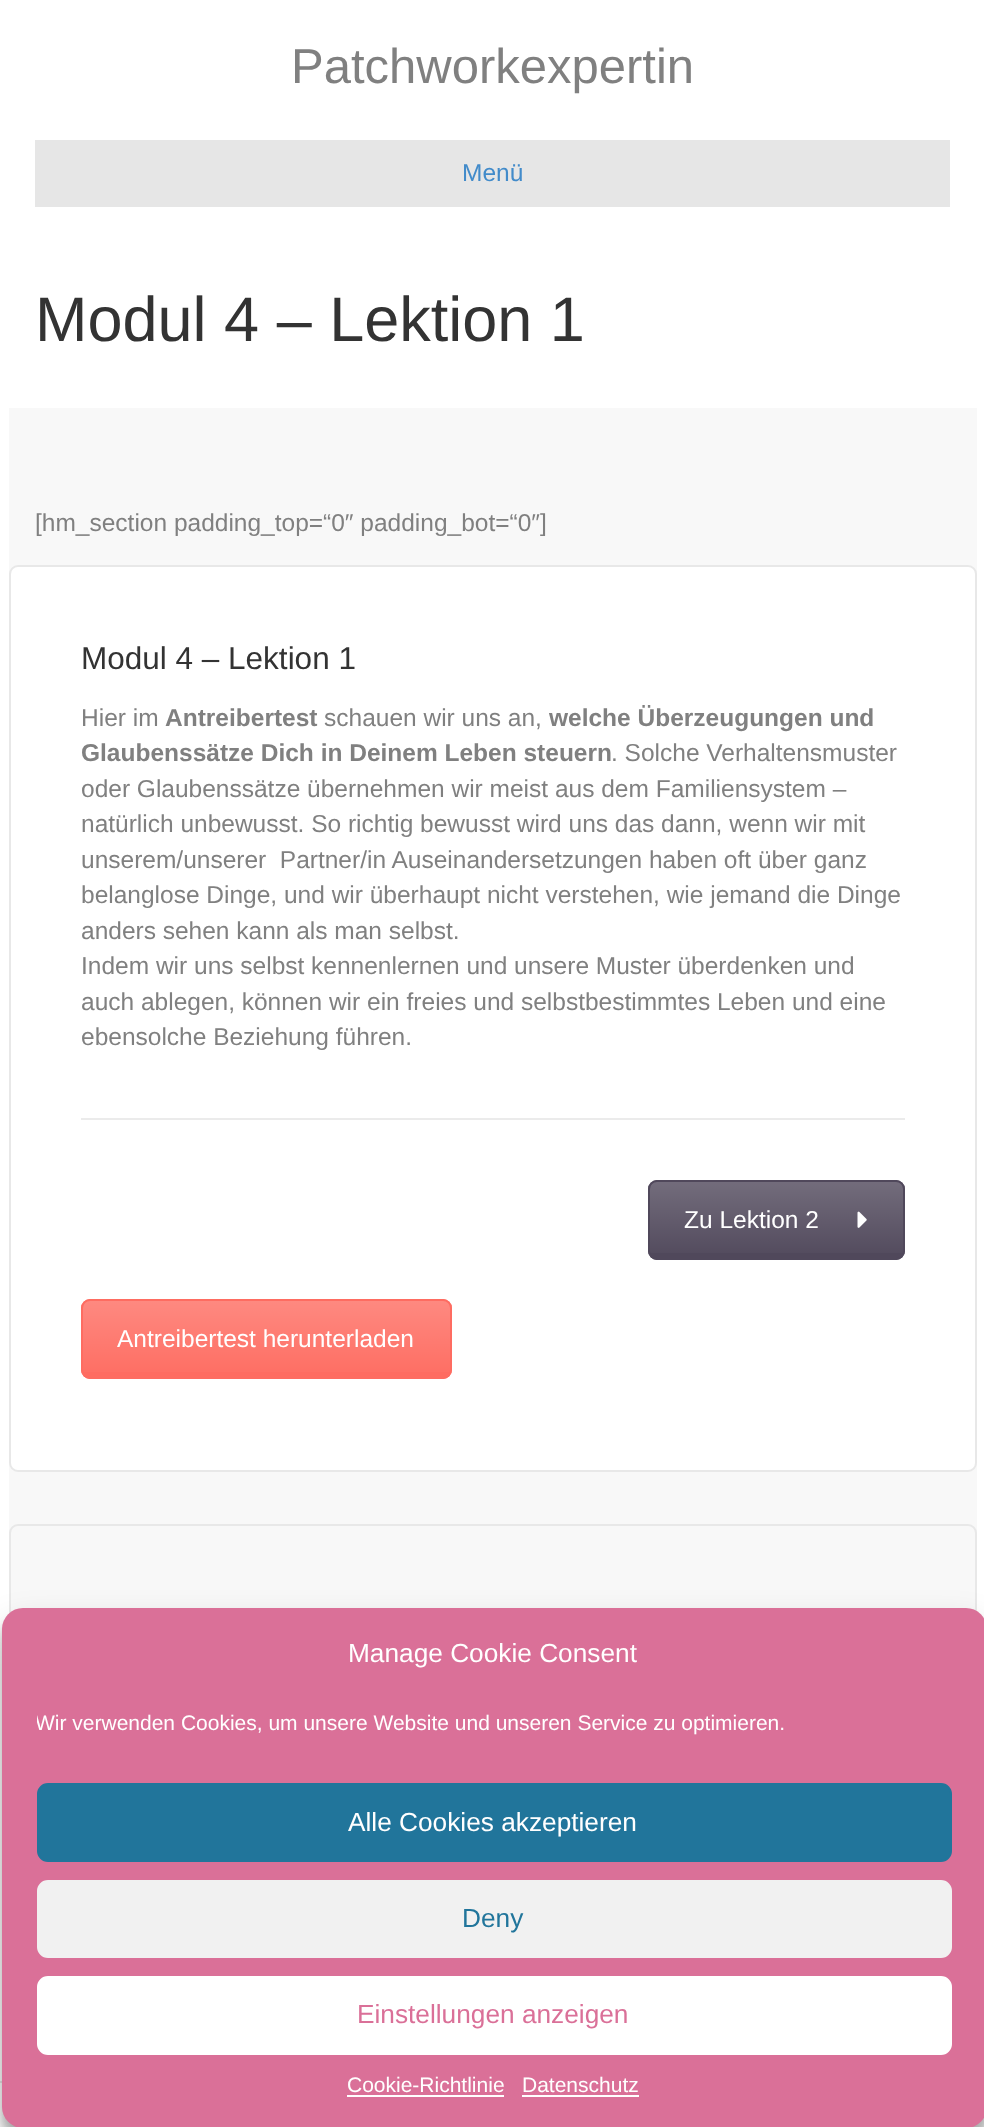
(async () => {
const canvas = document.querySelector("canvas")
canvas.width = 984
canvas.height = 2127
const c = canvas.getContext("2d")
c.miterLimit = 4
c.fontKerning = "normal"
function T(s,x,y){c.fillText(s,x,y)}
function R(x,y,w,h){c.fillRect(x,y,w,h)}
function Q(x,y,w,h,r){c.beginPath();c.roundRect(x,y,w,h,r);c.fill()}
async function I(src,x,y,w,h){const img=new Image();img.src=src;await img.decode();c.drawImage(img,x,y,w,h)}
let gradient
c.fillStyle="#fff"
R(0,0,984,2127)
c.font="49px Liberation Sans"
c.fillStyle="#808080"
T("Patchworkexpertin",291,83)
c.fillStyle="#e6e6e6"
R(35,140,915,67)
c.font="24.5px Liberation Sans"
c.fillStyle="#428bca"
T("Menü",462,181)
c.font="63px Liberation Sans"
c.fillStyle="#333"
T("Modul 4 – Lektion 1",35,341)
c.fillStyle="#f8f8f8"
R(9,408,968,1204)
c.font="24.5px Liberation Sans"
c.fillStyle="#808080"
T("[hm_section padding_top=“0″ padding_bot=“0″]",35,531)
c.fillStyle="#fff"
c.beginPath()
c.roundRect(10,566,966,905,8)
c.fill()
c.strokeStyle="#e8e8e8"
c.lineWidth=2
c.stroke()
c.font="31.5px Liberation Sans"
c.fillStyle="#333"
T("Modul 4 – Lektion 1",81,669)
c.font="24.5px Liberation Sans"
c.fillStyle="#808080"
T("Hier im",81,726)
c.font="bold 24.5px Liberation Sans"
T("Antreibertest",165,726)
c.font="24.5px Liberation Sans"
T("schauen wir uns an,",324,726)
c.font="bold 24.5px Liberation Sans"
T("welche Überzeugungen und",549,726)
T("Glaubenssätze Dich in Deinem Leben steuern",81,761)
c.font="24.5px Liberation Sans"
T(". Solche Verhaltensmuster",611,761)
T("oder Glaubenssätze übernehmen wir meist aus dem Familiensystem –",81,797)
T("natürlich unbewusst. So richtig bewusst wird uns das dann, wenn wir mit",81,832)
T("unserem/unserer  Partner/in Auseinandersetzungen haben oft über ganz",81,868)
T("belanglose Dinge, und wir überhaupt nicht verstehen, wie jemand die Dinge",81,903)
T("anders sehen kann als man selbst.",81,939)
T("Indem wir uns selbst kennenlernen und unsere Muster überdenken und",81,974)
T("auch ablegen, können wir ein freies und selbstbestimmtes Leben und eine",81,1010)
T("ebensolche Beziehung führen.",81,1045)
c.fillStyle="#ebebeb"
R(81,1118,824,2)
c.fillStyle="#50485b"
Q(648,1180,257,80,9)
c.save()
c.beginPath()
c.roundRect(648,1180,257,80,9)
c.clip()
gradient = c.createLinearGradient(776,1181,776,1258)
gradient.addColorStop(0,"#ffffff33")
gradient.addColorStop(1,"#ffffff03")
c.fillStyle = gradient
R(648,1181,257,72)
c.restore()
c.beginPath()
c.roundRect(649,1181,255,78,8)
c.strokeStyle="#50485b"
c.stroke()
c.fillStyle="#fff"
T("Zu Lektion 2",684,1228)
await I("1.png",857,1211,10,17)
c.fillStyle="#fe6c61"
Q(81,1299,371,80,9)
c.save()
c.beginPath()
c.roundRect(81,1299,371,80,9)
c.clip()
gradient = c.createLinearGradient(266,1300,266,1377)
gradient.addColorStop(0,"#ffffff33")
gradient.addColorStop(1,"#ffffff03")
c.fillStyle = gradient
R(81,1300,371,72)
c.restore()
c.beginPath()
c.roundRect(82,1300,369,78,8)
c.strokeStyle="#fe6c61"
c.stroke()
c.fillStyle="#fff"
T("Antreibertest herunterladen",117,1347)
c.beginPath()
c.roundRect(10,1525,966,389,8)
c.strokeStyle="#e8e8e8"
c.stroke()
c.fillStyle="#e6e6e6"
R(0,2081,2,2)
c.fillStyle="#0000003b"
c.filter="blur(5px)"
c.beginPath()
c.roundRect(2,1619,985,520,21)
c.fill()
c.filter="none"
c.fillStyle="#00000030"
c.filter="blur(17.5px)"
c.beginPath()
c.roundRect(2,1626,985,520,21)
c.fill()
c.filter="none"
c.fillStyle="#da7098"
Q(2,1608,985,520,21)
c.font="26.25px Liberation Sans"
c.fillStyle="#fff"
T("Manage Cookie Consent",348,1662)
c.save()
c.beginPath()
c.rect(37,1708,915,40)
c.clip()
c.font="21px Liberation Sans"
T("Wir verwenden Cookies, um unsere Website und unseren Service zu optimieren.",35,1730)
c.restore()
c.fillStyle="#21759b"
c.beginPath()
c.roundRect(38,1784,913,77,10)
c.fill()
c.strokeStyle="#21759b"
c.stroke()
c.fillStyle="#fff"
T("Alle Cookies akzeptieren",348,1831)
c.fillStyle="#f1f1f1"
c.beginPath()
c.roundRect(38,1881,913,76,10)
c.fill()
c.strokeStyle="#f1f1f1"
c.stroke()
c.fillStyle="#21759b"
T("Deny",462,1927)
c.fillStyle="#fff"
c.beginPath()
c.roundRect(38,1977,913,77,10)
c.fill()
c.strokeStyle="#fff"
c.stroke()
c.fillStyle="#da7098"
T("Einstellungen anzeigen",357,2023)
c.font="21px Liberation Sans"
c.fillStyle="#fff"
T("Cookie-Richtlinie",347,2092)
R(347,2095,157,2)
T("Datenschutz",522,2092)
R(522,2095,117,2)
})()
